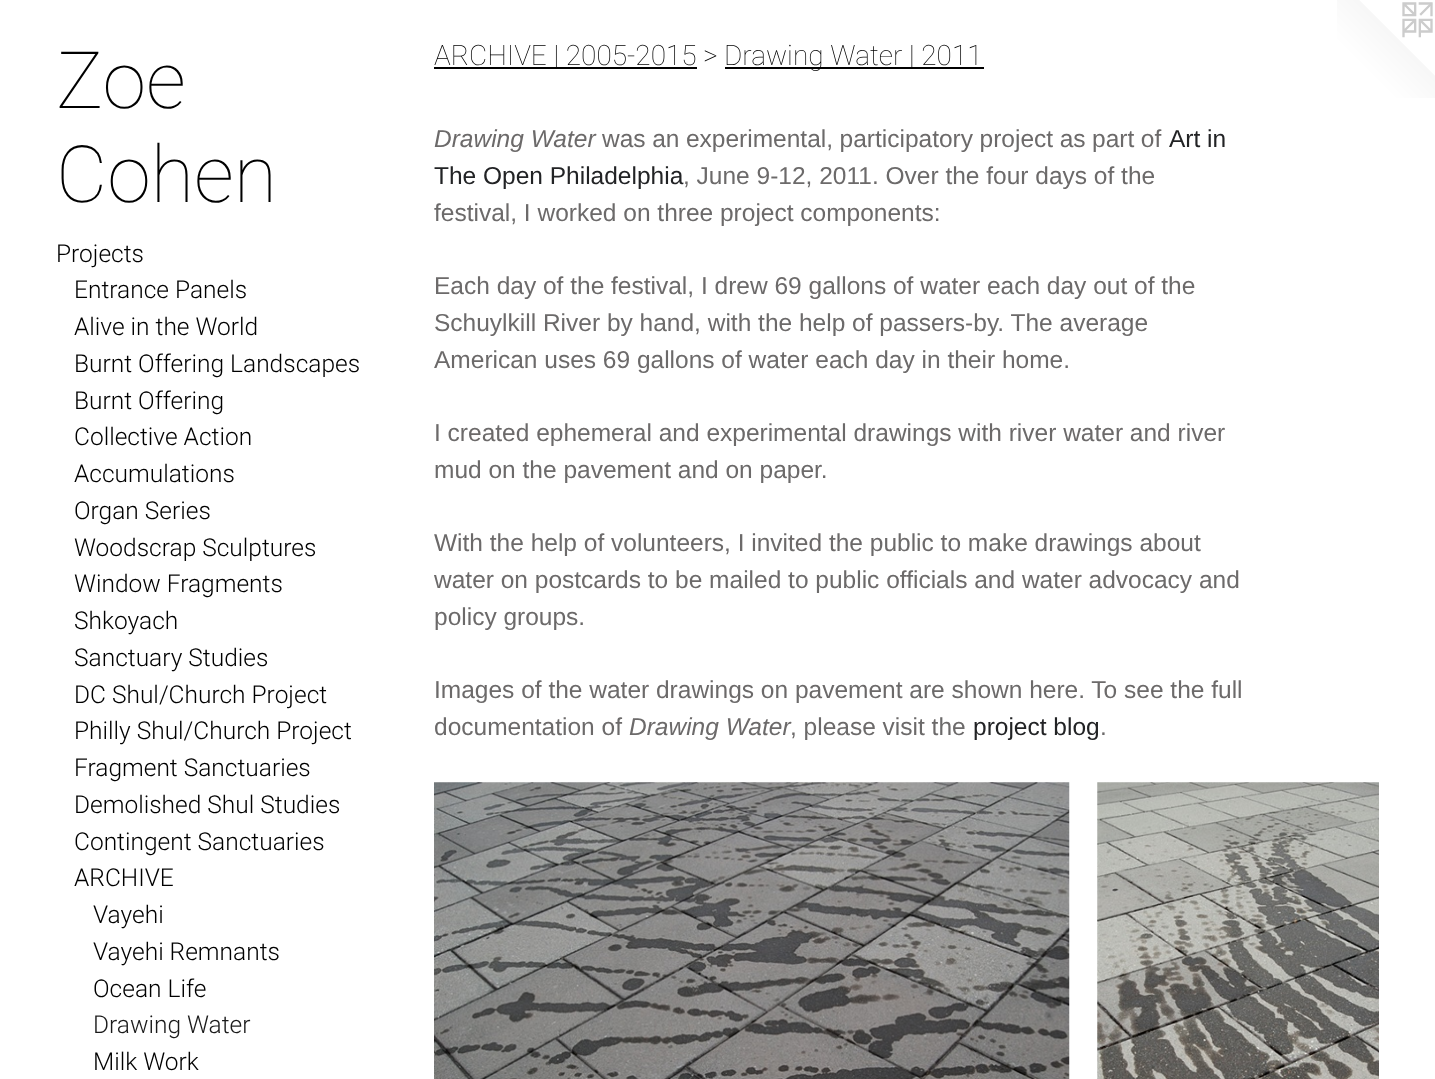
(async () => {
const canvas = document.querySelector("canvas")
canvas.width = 1435
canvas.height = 1079
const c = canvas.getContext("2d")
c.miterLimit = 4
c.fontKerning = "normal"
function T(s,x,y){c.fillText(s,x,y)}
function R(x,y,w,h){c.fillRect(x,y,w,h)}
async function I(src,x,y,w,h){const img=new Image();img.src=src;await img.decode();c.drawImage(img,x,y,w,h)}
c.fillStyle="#fff"
R(0,0,1435,1079)
c.font="100 79px Roboto"
c.fillStyle="#000"
T("Zoe",56,108)
T("Cohen",56,202)
c.font="300 24.5px Roboto"
T("Projects",56,262)
T("Entrance Panels",74,298)
T("Alive in the World",74,335)
T("Burnt Offering Landscapes",74,372)
T("Burnt Offering",74,409)
T("Collective Action",74,445)
T("Accumulations",74,482)
T("Organ Series",74,519)
T("Woodscrap Sculptures",74,556)
T("Window Fragments",74,592)
T("Shkoyach",74,629)
T("Sanctuary Studies",74,666)
T("DC Shul/Church Project",74,703)
T("Philly Shul/Church Project",74,739)
T("Fragment Sanctuaries",74,776)
T("Demolished Shul Studies",74,813)
T("Contingent Sanctuaries",74,850)
T("ARCHIVE",74,886)
T("Vayehi",93,923)
T("Vayehi Remnants",93,960)
T("Ocean Life",93,997)
c.fillStyle="#1a1a1a"
T("Drawing Water",93,1033)
c.fillStyle="#000"
T("Milk Work",93,1070)
R(434,67,263,2)
c.font="100 28px Roboto"
T("ARCHIVE | 2005-2015 >",434,65)
R(725,67,259,2)
T("Drawing Water | 2011",724,65)
c.font="italic 24.5px Liberation Sans"
c.fillStyle="#6c6a6a"
T("Drawing Water",434,147)
c.wordSpacing="-0.25px"
c.font="24.5px Liberation Sans"
T("was an experimental, participatory project as part of",602,147)
c.wordSpacing="0px"
c.fillStyle="#222325"
T("Art in",1169,147)
T("The Open Philadelphia",434,184)
c.fillStyle="#6c6a6a"
T(", June 9-12, 2011. Over the four days of the",683,184)
T("festival, I worked on three project components:",434,221)
T("Each day of the festival, I drew 69 gallons of water each day out of the",434,294)
T("Schuylkill River by hand, with the help of passers-by. The average",434,331)
T("American uses 69 gallons of water each day in their home.",434,368)
T("I created ephemeral and experimental drawings with river water and river",434,441)
T("mud on the pavement and on paper.",434,478)
T("With the help of volunteers, I invited the public to make drawings about",434,551)
T("water on postcards to be mailed to public officials and water advocacy and",434,588)
T("policy groups.",434,625)
T("Images of the water drawings on pavement are shown here. To see the full",434,698)
T("documentation of",434,735)
c.font="italic 24.5px Liberation Sans"
T("Drawing Water",629,735)
c.font="24.5px Liberation Sans"
T(", please visit the",790,735)
c.fillStyle="#222325"
T("project blog",973,735)
c.fillStyle="#6c6a6a"
T(".",1100,735)
await I("1.png",434,782,636,297)
await I("2.png",1097,782,282,297)
await I("3.png",1337,0,98,98)
})()
